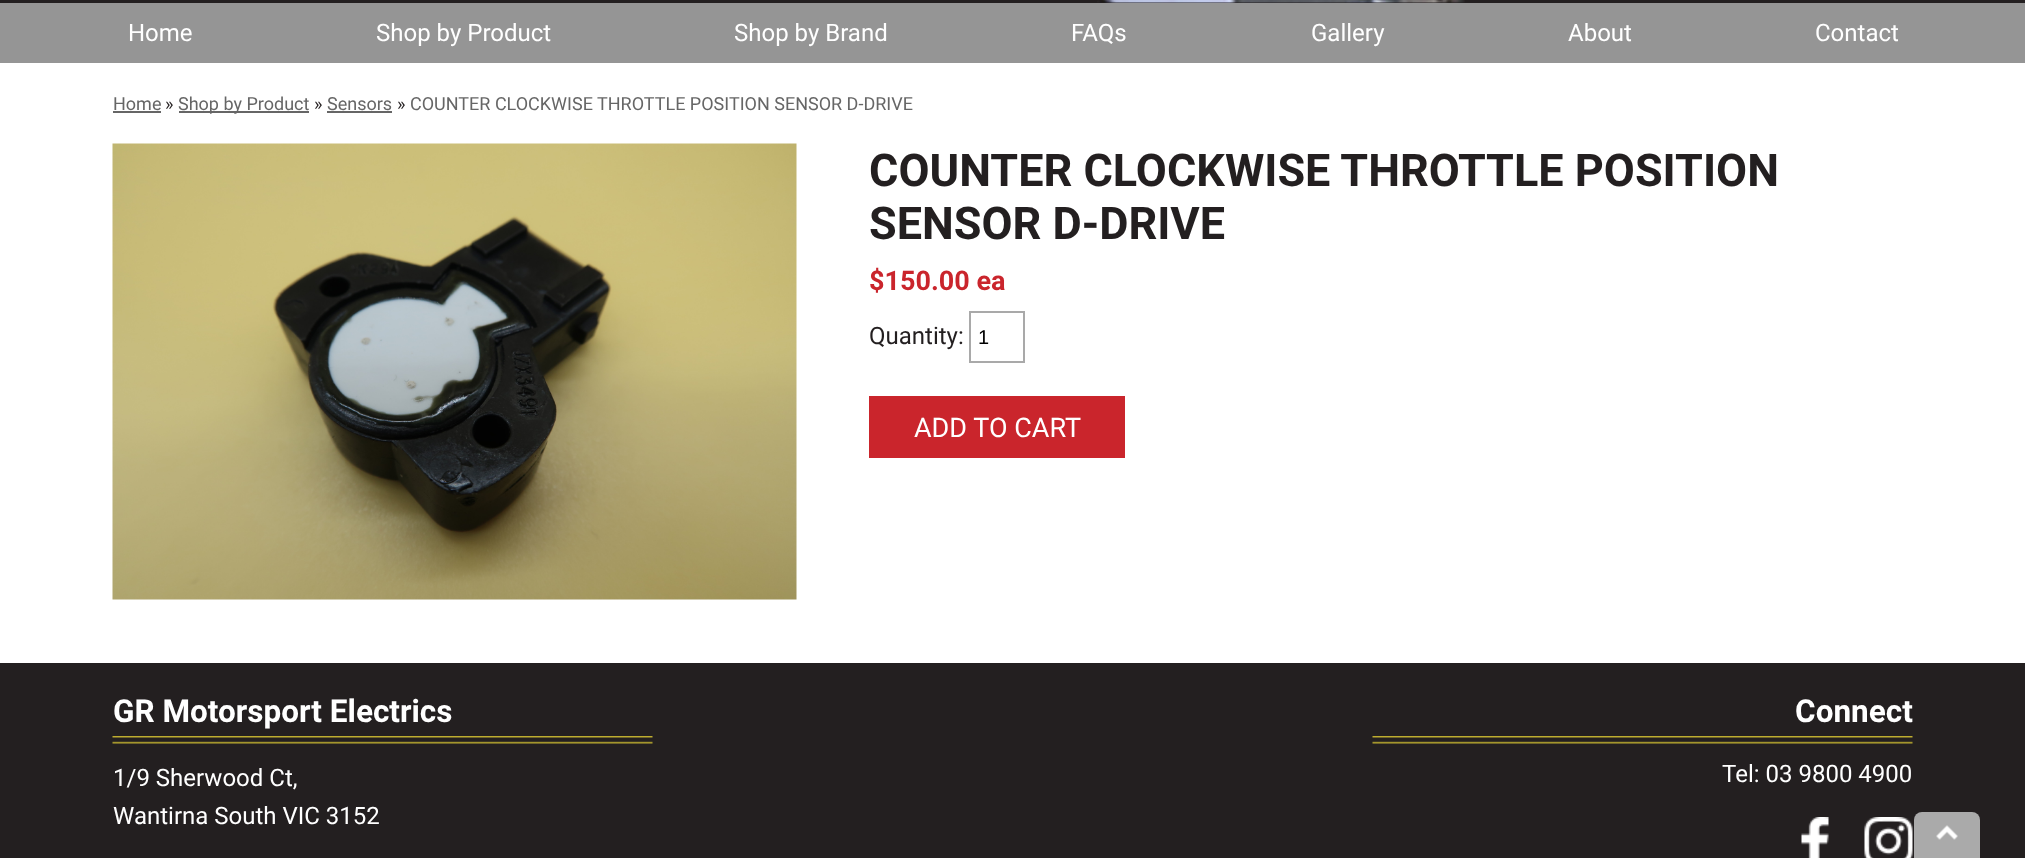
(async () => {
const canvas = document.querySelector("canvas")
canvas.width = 2025
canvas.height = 858
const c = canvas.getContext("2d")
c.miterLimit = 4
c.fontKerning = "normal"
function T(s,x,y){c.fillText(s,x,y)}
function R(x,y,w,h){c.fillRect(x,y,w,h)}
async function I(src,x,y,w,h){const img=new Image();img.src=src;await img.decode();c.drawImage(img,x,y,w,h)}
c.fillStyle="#fff"
R(0,0,2025,858)
c.fillStyle="#231f20"
R(0,0,2025,3)
await I("1.png",1097,0,368,3)
c.fillStyle="#959595"
R(0,3,2025,60)
c.font="24px Roboto"
c.fillStyle="#fff"
T("Home",128,41)
T("Shop by Product",376,41)
T("Shop by Brand",734,41)
T("FAQs",1071,41)
T("Gallery",1311,41)
T("About",1568,41)
T("Contact",1815,41)
c.font="18px Roboto"
c.fillStyle="#666"
T("Home",113,110)
R(113,111,48,2)
c.fillStyle="#231f20"
T("»",165,110)
c.fillStyle="#666"
R(179,111,130,2)
T("Shop by Product",178,110)
c.fillStyle="#231f20"
T("»",314,110)
c.fillStyle="#666"
T("Sensors",327,110)
R(327,111,65,2)
c.fillStyle="#231f20"
T("»",397,110)
c.fillStyle="#666"
T("COUNTER CLOCKWISE THROTTLE POSITION SENSOR D-DRIVE",410,110)
await I("2.png",112,143,685,457)
c.font="bold 45px Roboto"
c.fillStyle="#231f20"
T("COUNTER CLOCKWISE THROTTLE POSITION",869,186)
T("SENSOR D-DRIVE",869,239)
c.font="bold 27px Roboto"
c.fillStyle="#ca252c"
T("$150.00 ea",869,290)
c.font="24px Roboto"
c.fillStyle="#231f20"
T("Quantity:",869,344)
c.strokeStyle="#a9a9a9"
c.lineWidth=2
c.strokeRect(970,312,54,50)
c.font="20px Liberation Sans"
c.fillStyle="#000"
T("1",978,344)
c.fillStyle="#ca252c"
R(869,396,256,62)
c.font="27px Roboto"
c.fillStyle="#fff"
T("ADD TO CART",914,437)
c.fillStyle="#231f20"
R(0,663,2025,195)
await I("3.png",112,736,541,8)
c.font="bold 31.5px Roboto"
c.fillStyle="#fff"
T("GR Motorsport Electrics",113,722)
c.font="24px Roboto"
T("1/9 Sherwood Ct,",113,786)
T("Wantirna South VIC 3152",113,824)
await I("3.png",1372,736,541,8)
c.font="bold 31.5px Roboto"
T("Connect",1795,722)
c.font="24px Roboto"
T("Tel: 03 9800 4900",1722,782)
await I("4.png",1801,817,28,41)
await I("5.png",1864,817,49,41)
c.fillStyle="#aaa"
c.beginPath()
c.roundRect(1914,812,66,46,[8,8,0,0])
c.fill()
await I("6.png",1936,825,22,15)
})()
